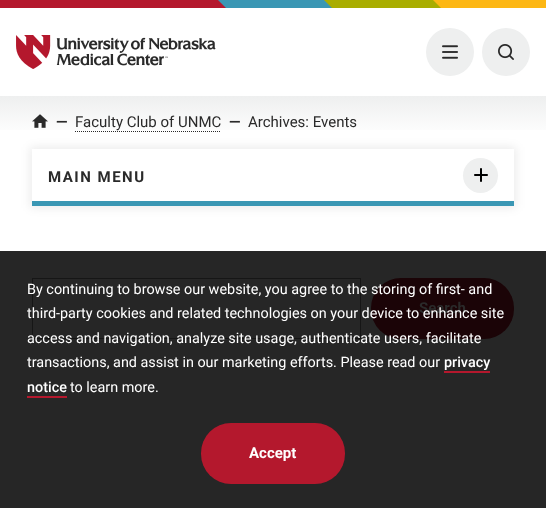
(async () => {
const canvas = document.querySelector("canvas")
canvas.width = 546
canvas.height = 508
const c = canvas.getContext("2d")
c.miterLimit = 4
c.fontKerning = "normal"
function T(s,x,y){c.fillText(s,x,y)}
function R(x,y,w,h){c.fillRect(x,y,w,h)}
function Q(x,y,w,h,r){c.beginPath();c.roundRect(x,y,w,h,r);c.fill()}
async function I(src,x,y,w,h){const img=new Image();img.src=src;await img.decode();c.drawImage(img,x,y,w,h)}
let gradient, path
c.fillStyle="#fff"
R(0,0,546,508)
c.fillStyle="#b4182d"
R(0,0,226,8)
c.fillStyle="#3a97b4"
path = new Path2D("M218 0l8 8h320v-8z")
c.fill(path)
c.fillStyle="#a9ad00"
path = new Path2D("M324 0l8 8h214v-8z")
c.fill(path)
c.fillStyle="#fdb714"
path = new Path2D("M433 0l8 8h105v-8z")
c.fill(path)
await I("1.png",16,35,200,34)
c.fillStyle="#eeefef"
c.beginPath()
c.arc(450,52,24,0,7)
c.fill()
await I("2.png",442,45,16,14)
c.beginPath()
c.arc(506,52,24,0,7)
c.fill()
await I("3.png",498,44,16,16)
gradient = c.createLinearGradient(273,96,273,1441)
gradient.addColorStop(0,"#eeefef")
gradient.addColorStop(.03,"#fff")
c.fillStyle = gradient
R(0,96,546,34)
gradient = c.createLinearGradient(273,96,273,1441)
gradient.addColorStop(0,"#242424")
gradient.addColorStop(.03,"#262626")
c.fillStyle = gradient
R(0,251,546,257)
await I("4.png",32,114,16,14)
c.font="bold 15px Roboto"
c.fillStyle="#2a2a2a"
T("—",56,127)
c.font="15px Roboto"
T("Faculty Club of UNMC",75,127)
path = new Path2D("M75 131.5h146")
c.strokeStyle="#2a2a2a"
c.setLineDash([1,1])
c.stroke(path)
c.font="bold 15px Roboto"
T("—",229,127)
c.font="15px Roboto"
T("Archives: Events",248,127)
c.save()
path = new Path2D("M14 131h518v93h-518zm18 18h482v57h-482z")
c.clip(path,"evenodd")
c.fillStyle="#00000014"
c.filter="blur(5px)"
c.beginPath()
c.rect(30,147,486,61)
c.fill()
c.filter="none"
c.restore()
c.letterSpacing="1.5px"
c.font="bold 15px Roboto"
T("MAIN MENU",48,182)
c.fillStyle="#eeefef"
c.beginPath()
c.arc(480.5,175.5,17.5,0,7)
c.fill()
await I("5.png",474,168,14,14)
c.fillStyle="#3a97b4"
R(32,201,482,5)
c.strokeStyle="#161616"
c.setLineDash([])
c.strokeRect(32.5,278.5,328,60)
c.fillStyle="#1b0407"
Q(371,278,143,61,30)
c.letterSpacing="0px"
c.fillStyle="#2a2a2a"
T("Search",419,313)
c.font="14.4px Roboto"
c.fillStyle="#fff"
T("By continuing to browse our website, you agree to the storing of first- and",27,294)
T("third-party cookies and related technologies on your device to enhance site",27,318)
T("access and navigation, analyze site usage, authenticate users, facilitate",27,343)
T("transactions, and assist in our marketing efforts. Please read our",27,367)
c.font="500 14.4px Roboto"
T("privacy",444,367)
c.fillStyle="#b4182d"
R(444,371,46,2)
c.fillStyle="#fff"
T("notice",27,392)
c.fillStyle="#b4182d"
R(27,396,40,2)
c.font="14.4px Roboto"
c.fillStyle="#fff"
T("to learn more.",70,392)
c.fillStyle="#b4182d"
Q(201,423,144,61,30)
c.font="bold 15px Roboto"
c.fillStyle="#fff"
T("Accept",249,458)
})()
